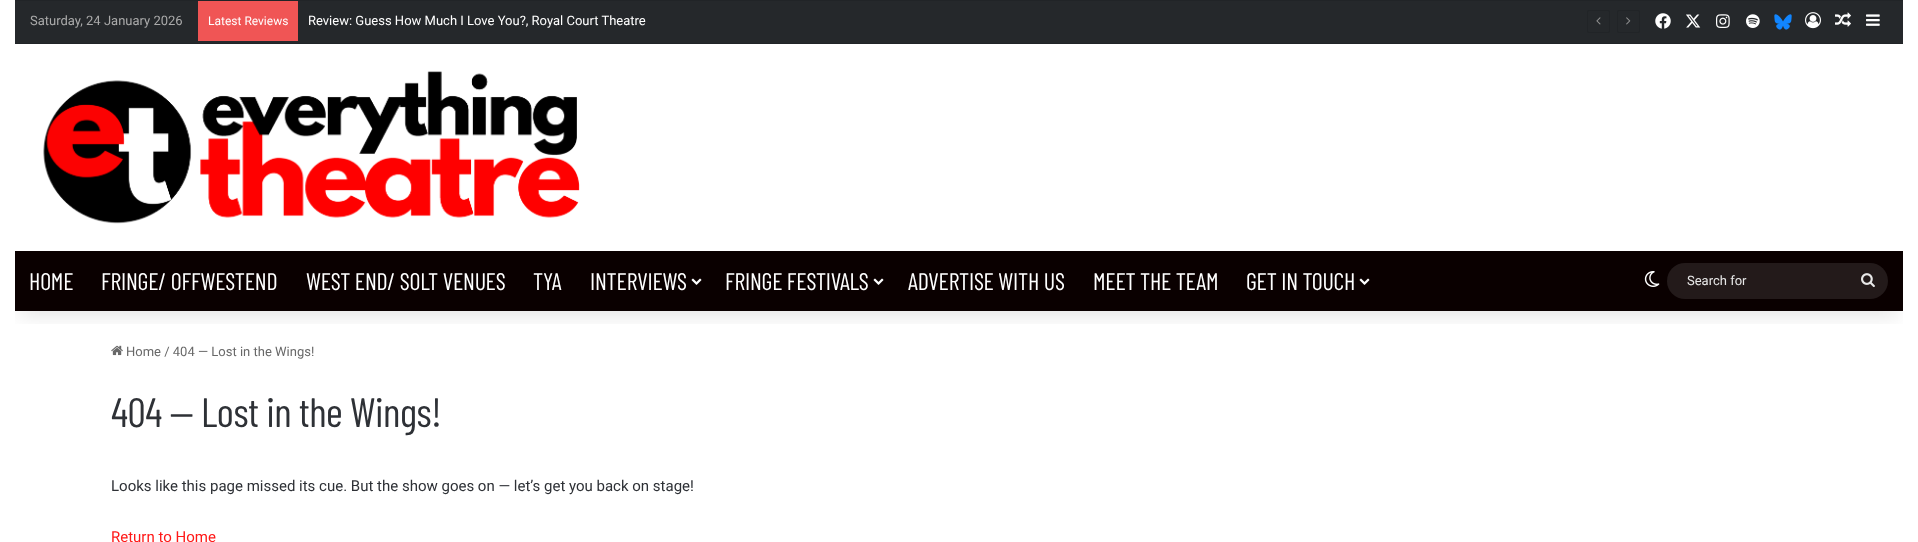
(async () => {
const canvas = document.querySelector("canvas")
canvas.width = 1918
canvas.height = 542
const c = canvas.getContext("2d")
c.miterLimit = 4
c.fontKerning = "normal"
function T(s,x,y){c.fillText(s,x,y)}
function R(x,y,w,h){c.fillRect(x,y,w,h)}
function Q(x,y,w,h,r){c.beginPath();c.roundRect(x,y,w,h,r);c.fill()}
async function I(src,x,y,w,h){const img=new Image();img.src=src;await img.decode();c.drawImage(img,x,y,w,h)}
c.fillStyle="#fff"
R(0,0,1918,542)
await I("15.png",111,345,12,11)
c.save()
c.beginPath()
c.rect(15,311,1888,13)
c.clip()
c.fillStyle="#0000001a"
c.filter="blur(10px)"
c.beginPath()
c.rect(20,45,1878,271)
c.fill()
c.filter="none"
c.restore()
c.fillStyle="#25282b"
R(15,1,1888,42)
c.fillStyle="#212427"
R(15,0,1888,1)
R(15,43,1888,1)
c.font="13px Roboto"
c.fillStyle="#aaa"
T("Saturday, 24 January 2026",30,25)
c.fillStyle="#f05555"
R(198,1,100,40)
c.font="12px Roboto"
c.fillStyle="#fff"
T("Latest Reviews",208,25)
c.font="13px Roboto"
T("Review: Guess How Much I Love You?, Royal Court Theatre",308,25)
c.beginPath()
c.roundRect(1587.5,10.5,22,22,1.5)
c.strokeStyle="#212427"
c.stroke()
await I("1.png",1596,17,5,8)
c.beginPath()
c.roundRect(1617.5,10.5,22,22,1.5)
c.stroke()
await I("2.png",1626,17,5,8)
await I("3.png",1655,13,16,16)
await I("4.png",1686,14,15,14)
await I("5.png",1716,14,14,14)
await I("6.png",1746,14,14,14)
await I("7.png",1774,14,18,16)
await I("8.png",1805,12,16,17)
await I("9.png",1835,12,16,15)
await I("10.png",1866,14,14,12)
await I("11.png",43,71,537,153)
c.fillStyle="#0a0000"
R(15,251,1888,60)
c.letterSpacing="-0.2px"
c.font="24px Barlow Condensed"
c.fillStyle="#fff"
T("HOME",29,290)
T("FRINGE/ OFFWESTEND",101,290)
T("WEST END/ SOLT VENUES",306,290)
T("TYA",533,290)
T("INTERVIEWS",590,290)
await I("12.png",691,278,11,7)
T("FRINGE FESTIVALS",725,290)
await I("12.png",873,278,11,7)
T("ADVERTISE WITH US",908,290)
T("MEET THE TEAM",1093,290)
T("GET IN TOUCH",1246,290)
await I("12.png",1359,278,11,7)
await I("13.png",1644,271,16,16)
c.fillStyle="#231a1a"
Q(1667,263,221,36,18)
c.letterSpacing="0px"
c.font="13px Roboto"
c.fillStyle="#e8e8e8"
T("Search for",1687,285)
await I("14.png",1861,273,14,15)
c.fillStyle="#686868"
T("Home / 404 — Lost in the Wings!",126,356)
c.letterSpacing="-0.5px"
c.font="41px Barlow Condensed"
c.fillStyle="#2e3136"
T("404 — Lost in the Wings!",111,427)
c.letterSpacing="0px"
c.font="15px Roboto"
T("Looks like this page missed its cue. But the show goes on — let’s get you back on stage!",111,491)
c.fillStyle="#ff1918"
T("Return to Home",111,542)
})()
